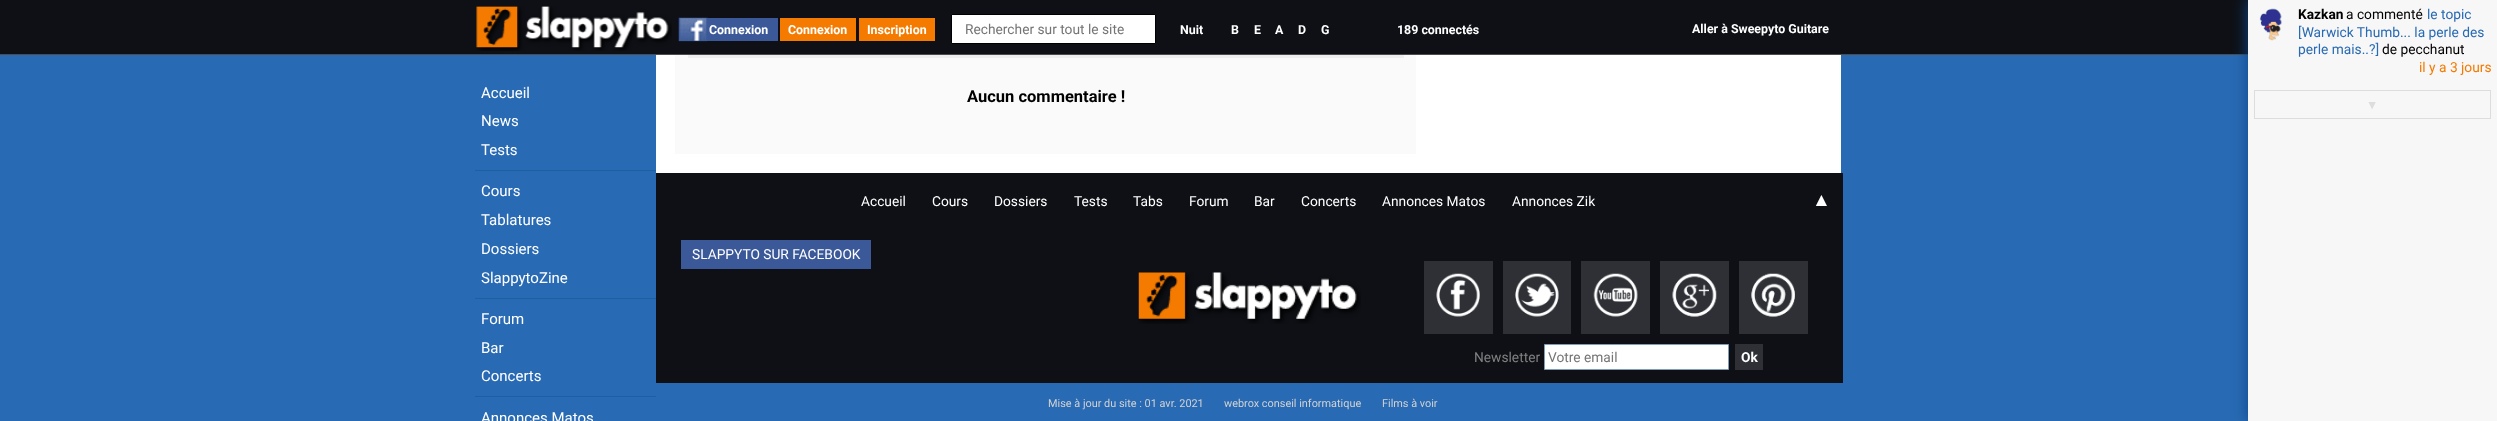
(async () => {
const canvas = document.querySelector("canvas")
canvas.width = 2497
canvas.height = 421
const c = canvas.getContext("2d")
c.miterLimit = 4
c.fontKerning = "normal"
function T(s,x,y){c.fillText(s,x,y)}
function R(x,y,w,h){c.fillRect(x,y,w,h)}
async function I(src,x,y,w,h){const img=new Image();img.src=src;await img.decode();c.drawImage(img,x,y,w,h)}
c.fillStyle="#286ab3"
R(0,0,2497,421)
c.fillStyle="#0e1015"
R(0,0,2248,54)
c.fillStyle="#4c4c4c"
R(0,54,2248,1)
c.fillStyle="#0b458b"
c.filter="blur(7.5px)"
c.beginPath()
c.rect(2248,0,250,421)
c.fill()
c.filter="none"
c.fillStyle="#f7f7f7"
R(2248,0,249,421)
await I("1.png",2259,8,23,33)
c.font="bold 13.75px Roboto"
c.fillStyle="#000"
T("Kazkan",2298,19)
c.font="13.75px Roboto"
T("a commenté",2346,19)
c.fillStyle="#286ab3"
T("le topic",2427,19)
T("[Warwick Thumb... la perle des",2298,37)
T("perle mais..?]",2298,54)
c.fillStyle="#000"
T("de pecchanut",2382,54)
c.fillStyle="#f47a00"
T("il y a 3 jours",2419,72)
c.strokeStyle="#ddd"
c.strokeRect(2254.5,90.5,236,28)
c.font="12.4px Liberation Sans"
c.fillStyle="#ddd"
T("▼",2366,109)
c.fillStyle="#1f5ea3"
R(475,170,181,1)
c.font="15px Roboto"
c.fillStyle="#fff"
T("Accueil",481,98)
T("News",481,126)
T("Tests",481,155)
c.fillStyle="#1f5ea3"
R(475,298,181,1)
c.fillStyle="#fff"
T("Cours",481,196)
T("Tablatures",481,225)
T("Dossiers",481,254)
T("SlappytoZine",481,283)
c.fillStyle="#1f5ea3"
R(475,396,181,1)
c.fillStyle="#fff"
T("Forum",481,324)
T("Bar",481,353)
T("Concerts",481,381)
T("Annonces Matos",481,423)
R(656,55,1185,118)
c.fillStyle="#fafafa"
R(675,55,741,99)
c.fillStyle="#eee"
R(688,55,716,3)
c.font="bold 16.5px Roboto"
c.fillStyle="#000"
T("Aucun commentaire !",967,102)
c.fillStyle="#0e1015"
R(656,173,1187,210)
c.font="13.75px Roboto"
c.fillStyle="#fff"
T("Accueil",861,206)
T("Cours",932,206)
T("Dossiers",994,206)
T("Tests",1074,206)
T("Tabs",1133,206)
T("Forum",1189,206)
T("Bar",1254,206)
T("Concerts",1301,206)
T("Annonces Matos",1382,206)
T("Annonces Zik",1512,206)
c.font="19px Liberation Sans"
T("▲",1812,206)
c.fillStyle="#3b5998"
R(681,240,190,29)
c.font="13.75px Roboto"
c.fillStyle="#fff"
T("SLAPPYTO SUR FACEBOOK",692,259)
await I("2.png",1138,272,223,52)
c.fillStyle="#2e3035"
R(1424,261,69,73)
await I("3.png",1436,273,44,44)
R(1503,261,68,73)
await I("4.png",1515,273,44,44)
R(1581,261,69,73)
await I("5.png",1593,273,45,44)
R(1660,261,69,73)
await I("6.png",1672,273,45,44)
R(1739,261,69,73)
await I("7.png",1751,273,44,44)
c.fillStyle="#808080"
T("Newsletter",1474,362)
c.fillStyle="#fff"
c.beginPath()
c.rect(1544.5,344.5,184,25)
c.fill()
c.strokeStyle="#7f9db9"
c.stroke()
c.fillStyle="#757575"
T("Votre email",1548,362)
c.fillStyle="#2e3035"
R(1735,344,28,26)
c.font="bold 13.75px Roboto"
c.fillStyle="#fff"
T("Ok",1741,362)
c.font="10.9px Roboto"
c.fillStyle="#d2d2d2"
T("Mise à jour du site : 01 avr. 2021",1048,407)
T("webrox conseil informatique",1224,407)
T("Films à voir",1382,407)
await I("8.png",476,6,196,45)
c.fillStyle="#3b5998"
R(707,18,71,23)
await I("9.png",678,17,30,25)
c.font="bold 12.4px Roboto"
c.fillStyle="#fff"
T("Connexion",709,34)
c.fillStyle="#f47a00"
R(780,18,76,23)
c.fillStyle="#fff"
T("Connexion",788,34)
c.fillStyle="#f47a00"
R(859,18,76,23)
c.fillStyle="#fff"
T("Inscription",867,34)
c.beginPath()
c.rect(951.5,14.5,204,29)
c.fill()
c.strokeStyle="#000"
c.stroke()
c.font="13.75px Roboto"
c.fillStyle="#757575"
T("Rechercher sur tout le site",965,34)
c.font="bold 12.4px Roboto"
c.fillStyle="#fff"
T("Nuit",1180,34)
T("B",1231,34)
T("E",1254,34)
T("A",1275,34)
T("D",1298,34)
T("G",1321,34)
T("189 connectés",1397,34)
T("Aller à Sweepyto Guitare",1692,33)
})()
